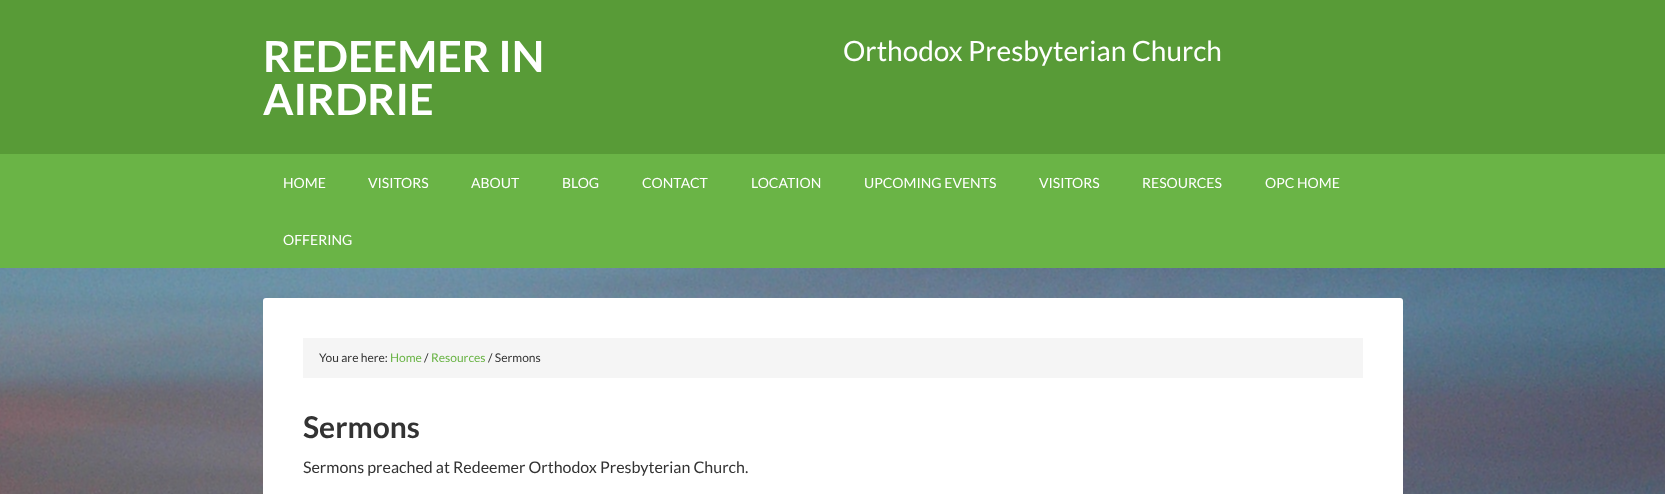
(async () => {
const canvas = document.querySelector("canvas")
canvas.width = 1665
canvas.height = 494
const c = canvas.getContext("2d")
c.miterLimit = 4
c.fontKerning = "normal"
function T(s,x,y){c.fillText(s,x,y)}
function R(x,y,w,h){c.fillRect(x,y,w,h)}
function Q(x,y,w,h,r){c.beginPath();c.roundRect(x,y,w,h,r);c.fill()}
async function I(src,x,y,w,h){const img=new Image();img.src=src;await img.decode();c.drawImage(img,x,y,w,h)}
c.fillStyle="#fff"
R(0,0,1665,494)
await I("1.png",0,268,1665,226)
c.fillStyle="#589b37"
R(0,0,1665,154)
c.font="bold 43px Lato"
c.fillStyle="#fff"
T("REDEEMER IN",263,72)
T("AIRDRIE",263,115)
c.font="28px Lato"
T("Orthodox Presbyterian Church",843,61)
c.fillStyle="#6ab446"
R(0,154,1665,114)
c.font="14px Lato"
c.fillStyle="#fff"
T("HOME",283,188)
T("VISITORS",368,188)
T("ABOUT",471,188)
T("BLOG",562,188)
T("CONTACT",642,188)
T("LOCATION",751,188)
T("UPCOMING EVENTS",864,188)
T("VISITORS",1039,188)
T("RESOURCES",1142,188)
T("OPC HOME",1265,188)
T("OFFERING",283,245)
Q(263,298,1140,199,3)
c.fillStyle="#f5f5f5"
R(303,338,1060,40)
c.font="12px Lato"
c.fillStyle="#333"
T("You are here:",319,362)
c.fillStyle="#6ab446"
T("Home",390,362)
c.fillStyle="#333"
T("/",424,362)
c.fillStyle="#6ab446"
T("Resources",431,362)
c.fillStyle="#333"
T("/ Sermons",488,362)
c.font="bold 30px Lato"
T("Sermons",303,438)
c.font="16px Lato"
T("Sermons preached at Redeemer Orthodox Presbyterian Church.",303,473)
})()
